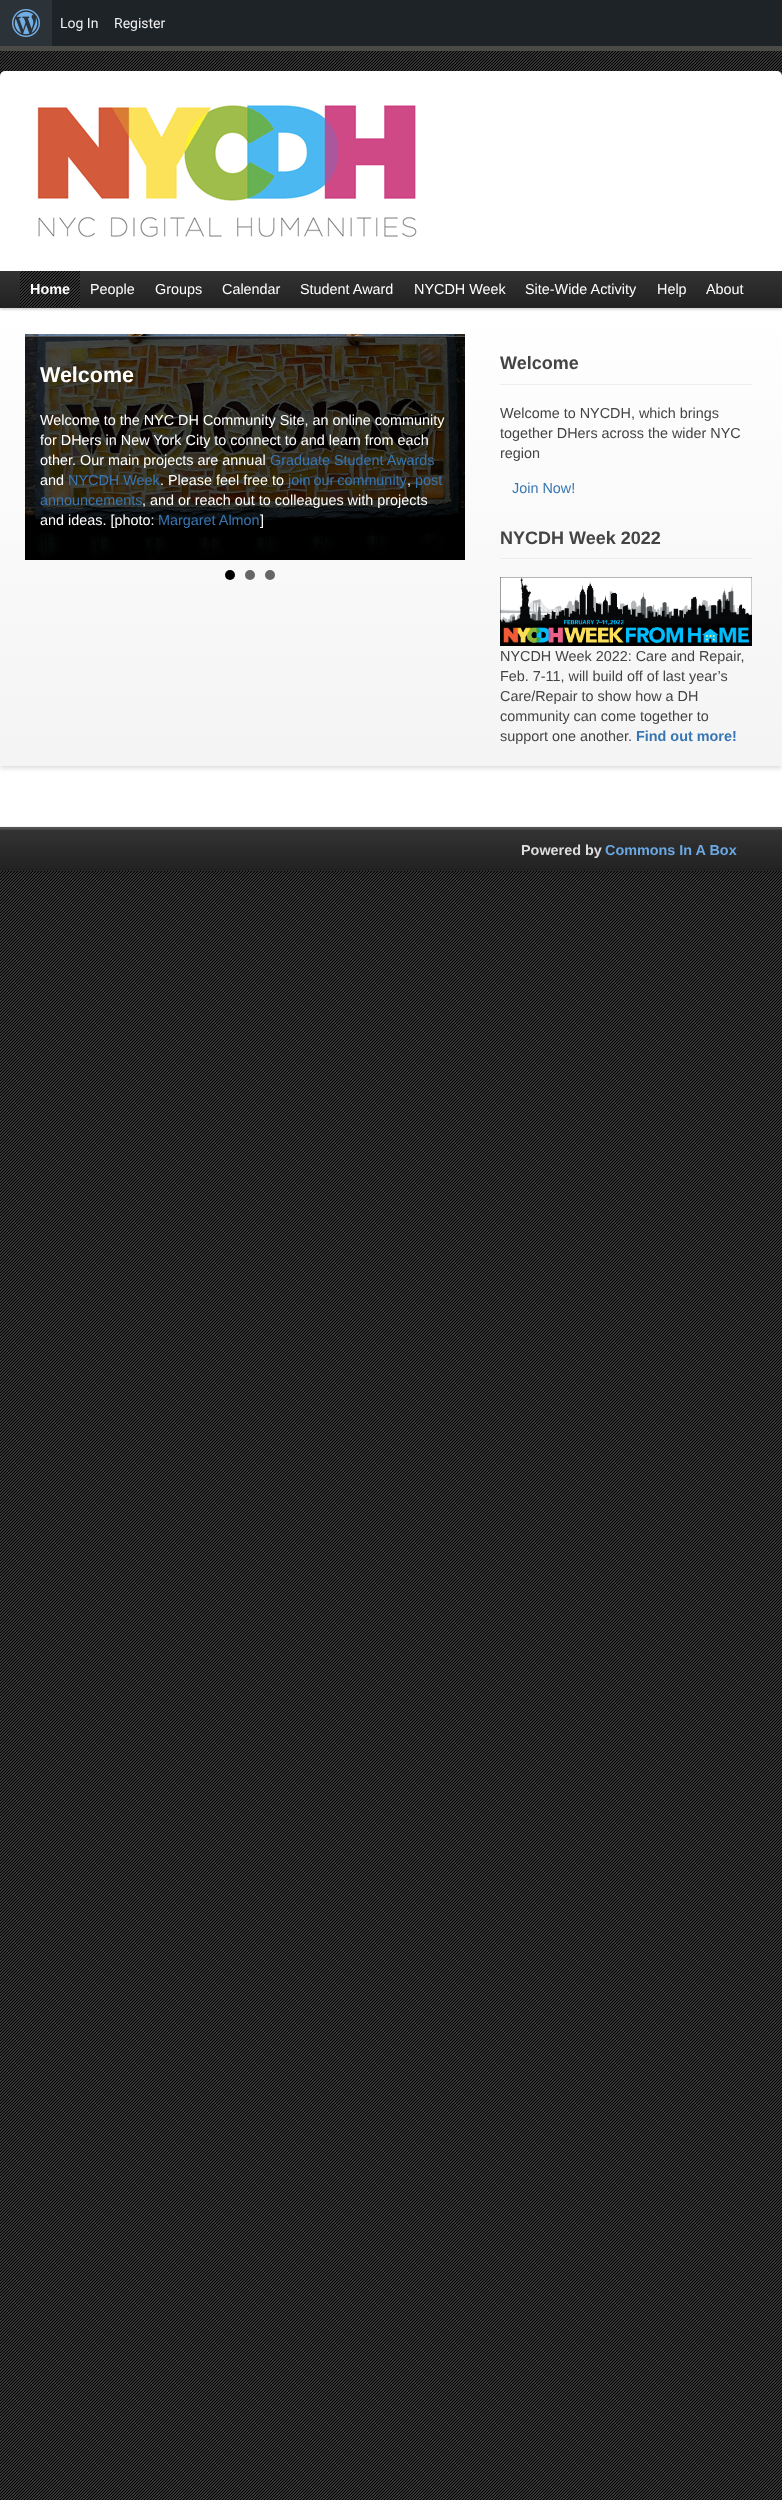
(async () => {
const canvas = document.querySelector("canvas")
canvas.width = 782
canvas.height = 2500
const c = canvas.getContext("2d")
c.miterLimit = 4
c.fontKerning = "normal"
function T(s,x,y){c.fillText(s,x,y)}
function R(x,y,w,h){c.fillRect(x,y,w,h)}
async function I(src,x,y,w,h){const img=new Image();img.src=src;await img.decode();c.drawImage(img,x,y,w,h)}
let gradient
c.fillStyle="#fff"
R(0,0,782,2500)
await I("1.png",0,51,782,2449)
c.fillStyle="#4b4a47"
R(0,46,782,5)
c.fillStyle="#1d2327"
R(52,0,730,46)
c.fillStyle="#2c3338"
R(0,0,52,46)
await I("2.png",12,9,28,28)
c.font="14px Roboto"
c.fillStyle="#f0f0f1"
T("Log In",60,28)
T("Register",114,28)
c.fillStyle="#fff"
R(0,766,782,61)
c.fillStyle="#00000026"
c.filter="blur(2.5px)"
c.beginPath()
c.rect(0,306,782,462)
c.fill()
c.filter="none"
gradient = c.createLinearGradient(391,304,391,766)
gradient.addColorStop(0,"#fff")
gradient.addColorStop(1,"#f4f4f4")
c.fillStyle = gradient
R(0,308,782,458)
c.fillStyle="#00000040"
c.filter="blur(1.5px)"
c.beginPath()
c.rect(0,272,782,37)
c.fill()
c.filter="none"
c.fillStyle="#fff"
c.beginPath()
c.roundRect(0,71,782,200,[5,5,0,0])
c.fill()
await I("3.png",37,105,380,132)
gradient = c.createLinearGradient(391,271,391,307)
gradient.addColorStop(0,"#333")
gradient.addColorStop(1,"#222")
c.fillStyle = gradient
R(0,271,782,35)
c.fillStyle="#1f1f1f"
R(0,306,782,1)
c.fillStyle="#292525"
R(0,307,782,1)
await I("4.png",20,271,60,36)
c.font="bold 14.4px Liberation Sans"
c.fillStyle="#fff"
T("Home",30,294)
c.font="14.4px Liberation Sans"
T("People",90,294)
T("Groups",155,294)
T("Calendar",222,294)
T("Student Award",300,294)
T("NYCDH Week",414,294)
T("Site-Wide Activity",525,294)
T("Help",657,294)
T("About",706,294)
await I("5.png",25,334,440,226)
c.fillStyle="#545353"
R(25,336,440,1)
c.font="bold 21.5px Liberation Sans"
c.fillStyle="#fff"
T("Welcome",40,382)
c.font="14.4px Liberation Sans"
T("Welcome to the NYC DH Community Site, an online community",40,425)
T("for DHers in New York City to connect to and learn from each",40,445)
T("other. Our main projects are annual",40,465)
c.fillStyle="#3876b3"
T("Graduate Student Awards",270,465)
c.fillStyle="#fff"
T("and",40,485)
c.fillStyle="#3876b3"
T("NYCDH Week",68,485)
c.fillStyle="#fff"
T(". Please feel free to",160,485)
c.wordSpacing="-1px"
c.fillStyle="#3876b3"
T("join our community",288,485)
c.wordSpacing="0px"
c.fillStyle="#fff"
T(",",407,485)
c.fillStyle="#3876b3"
T("post",415,485)
T("announcements",40,505)
c.fillStyle="#fff"
T(", and or reach out to colleagues with projects",142,505)
T("and ideas. [photo:",40,525)
c.fillStyle="#3876b3"
T("Margaret Almon",158,525)
c.fillStyle="#fff"
T("]",260,525)
c.fillStyle="#000"
c.beginPath()
c.arc(230,575,5,0,7)
c.fill()
c.fillStyle="#666"
c.beginPath()
c.arc(250,575,5,0,7)
c.fill()
c.beginPath()
c.arc(270,575,5,0,7)
c.fill()
c.fillStyle="#ededed"
R(500,384,252,1)
c.font="bold 18px Liberation Sans"
c.fillStyle="#444"
T("Welcome",500,369)
c.font="14.4px Liberation Sans"
T("Welcome to NYCDH, which brings",500,418)
T("together DHers across the wider NYC",500,438)
T("region",500,458)
c.fillStyle="#3876b3"
T("Join Now!",512,493)
c.fillStyle="#ededed"
R(500,558,252,1)
c.font="bold 18px Liberation Sans"
c.fillStyle="#444"
T("NYCDH Week 2022",500,544)
await I("6.png",500,577,252,69)
c.font="14.4px Liberation Sans"
T("NYCDH Week 2022: Care and Repair,",500,661)
T("Feb. 7-11, will build off of last year’s",500,681)
T("Care/Repair to show how a DH",500,701)
T("community can come together to",500,721)
T("support one another.",500,741)
c.font="bold 14.4px Liberation Sans"
c.fillStyle="#3876b3"
T("Find out more!",636,741)
c.fillStyle="#00000040"
c.filter="blur(1.5px)"
c.beginPath()
c.rect(0,828,782,44)
c.fill()
c.filter="none"
gradient = c.createLinearGradient(391,829,391,870)
gradient.addColorStop(0,"#333")
gradient.addColorStop(1,"#222")
c.fillStyle = gradient
R(0,830,782,39)
c.fillStyle="#1f1f1f"
R(0,869,782,1)
c.fillStyle="#525151"
R(0,827,782,2)
c.fillStyle="#292525"
R(0,870,782,1)
c.fillStyle="#454545"
R(0,829,782,1)
c.fillStyle="#ddd"
T("Powered by",521,855)
c.fillStyle="#6ba8e4"
T("Commons In A Box",605,855)
})()
